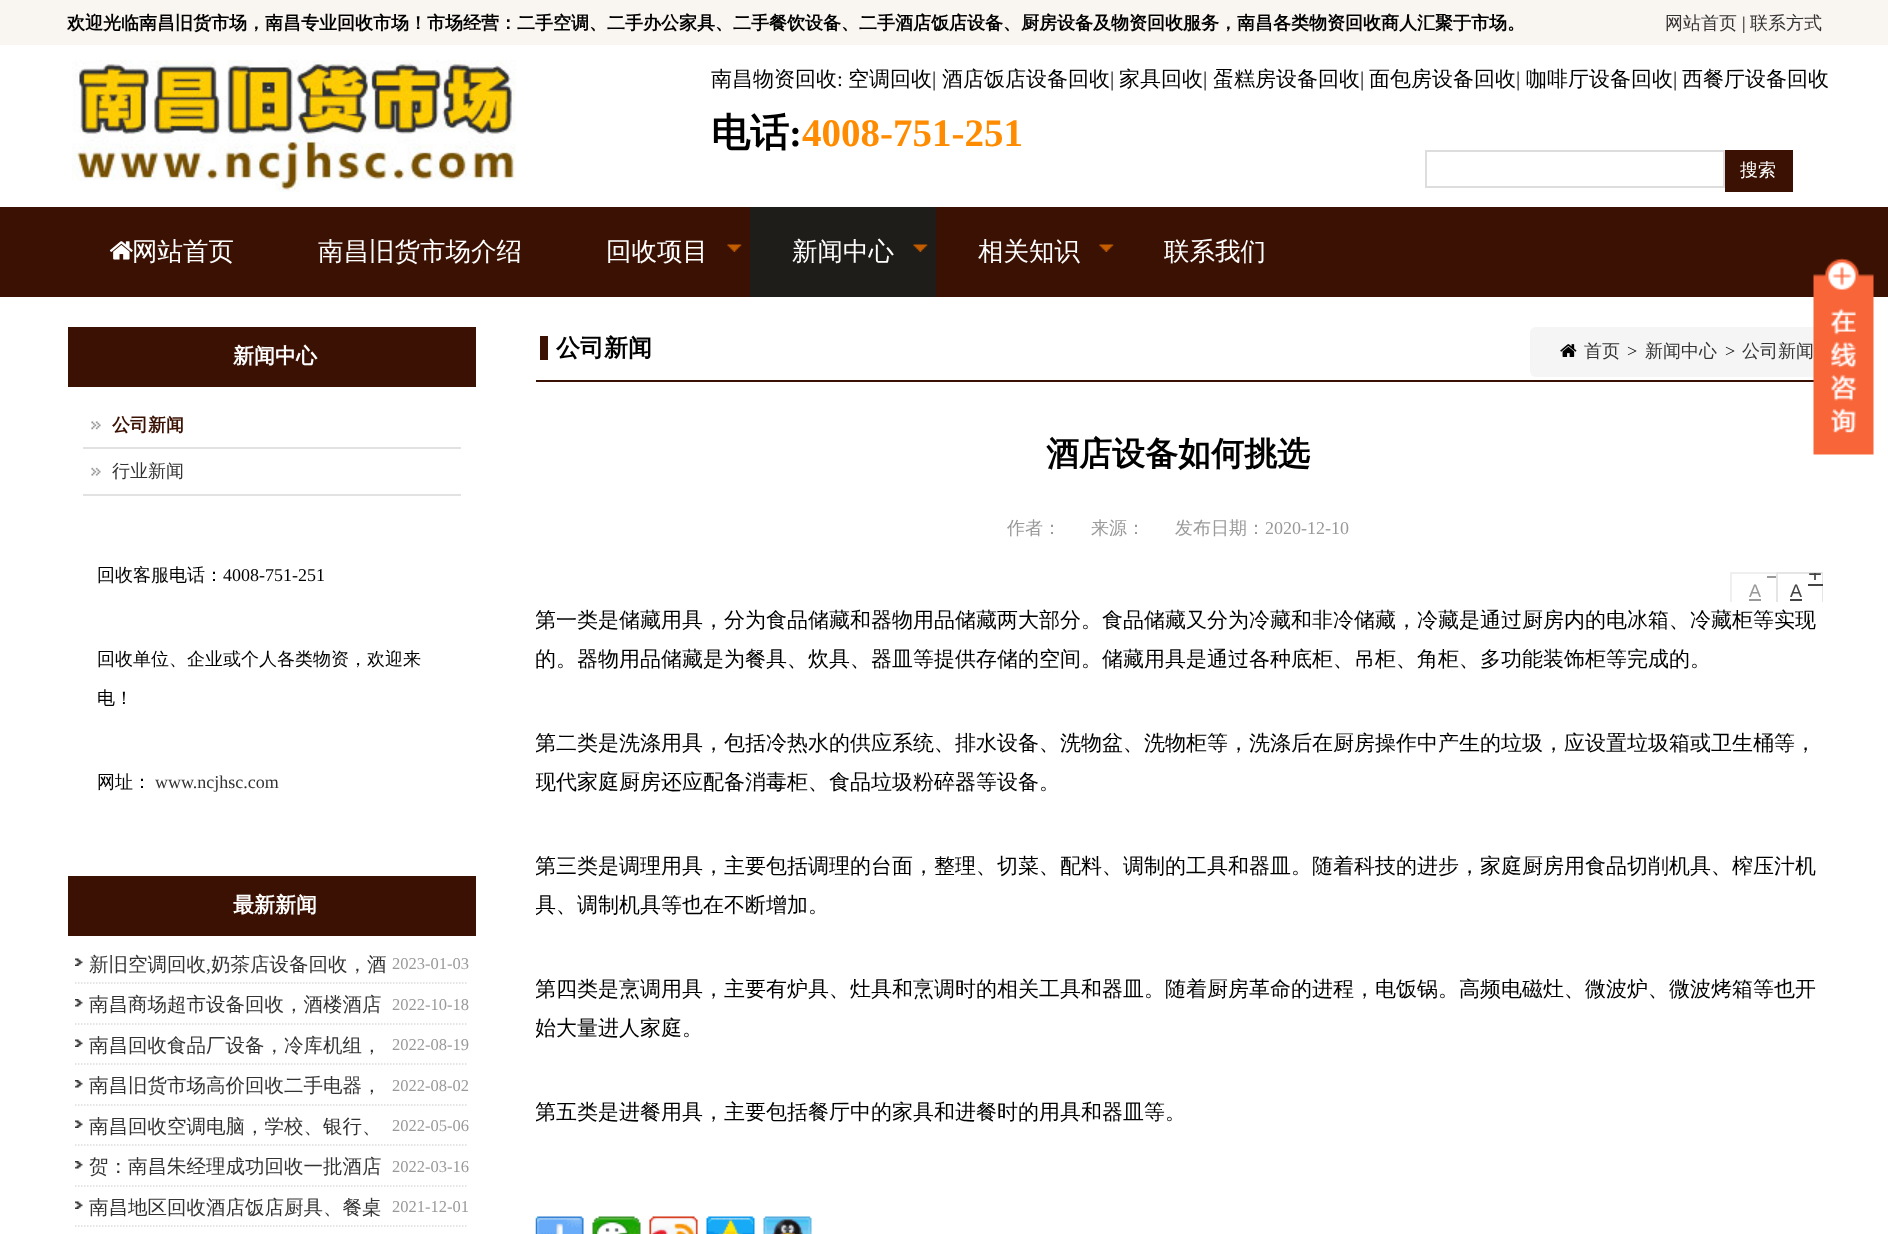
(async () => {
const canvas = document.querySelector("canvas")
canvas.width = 1888
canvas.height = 1234
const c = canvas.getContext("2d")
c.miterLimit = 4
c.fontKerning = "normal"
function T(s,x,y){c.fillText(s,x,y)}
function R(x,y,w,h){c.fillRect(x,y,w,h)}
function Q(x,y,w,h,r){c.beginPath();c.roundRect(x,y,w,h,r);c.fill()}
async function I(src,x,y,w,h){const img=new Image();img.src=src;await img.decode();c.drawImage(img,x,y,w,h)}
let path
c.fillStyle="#fff"
R(0,0,1888,1234)
c.fillStyle="#f9f5f1"
R(0,0,1888,45)
c.font="bold 18px WenQuanYi Zen Hei"
c.fillStyle="#000"
T("欢迎光临南昌旧货市场，南昌专业回收市场！市场经营：二手空调、二手办公家具、二手餐饮设备、二手酒店饭店设备、厨房设备及物资回收服务，南昌各类物资回收商人汇聚于市场。",67,29)
c.font="500 18px WenQuanYi Zen Hei"
c.fillStyle="#333"
T("网站首页",1665,29)
c.font="18px Liberation Serif"
c.fillStyle="#000"
T("|",1742,29)
c.font="500 18px WenQuanYi Zen Hei"
c.fillStyle="#333"
T("联系方式",1750,29)
await I("1.png",72,60,444,132)
c.font="500 21px WenQuanYi Zen Hei"
c.fillStyle="#000"
T("南昌物资回收",711,86)
c.font="21px Liberation Serif"
T(":",837,86)
c.font="500 21px WenQuanYi Zen Hei"
T("空调回收",848,86)
c.font="21px Liberation Serif"
T("|",932,86)
c.font="500 21px WenQuanYi Zen Hei"
T("酒店饭店设备回收",942,86)
c.font="21px Liberation Serif"
T("|",1110,86)
c.font="500 21px WenQuanYi Zen Hei"
T("家具回收",1119,86)
c.font="21px Liberation Serif"
T("|",1203,86)
c.font="500 21px WenQuanYi Zen Hei"
T("蛋糕房设备回收",1213,86)
c.font="21px Liberation Serif"
T("|",1360,86)
c.font="500 21px WenQuanYi Zen Hei"
T("面包房设备回收",1369,86)
c.font="21px Liberation Serif"
T("|",1516,86)
c.font="500 21px WenQuanYi Zen Hei"
T("咖啡厅设备回收",1526,86)
c.font="21px Liberation Serif"
T("|",1673,86)
c.font="500 21px WenQuanYi Zen Hei"
T("西餐厅设备回收",1682,86)
c.font="bold 39px WenQuanYi Zen Hei"
T("电话",711,146)
c.font="bold 39px Liberation Serif"
T(":",789,146)
c.fillStyle="#ff8c00"
T("4008-751-251",802,146)
c.strokeStyle="#ddd"
c.lineWidth=2
c.strokeRect(1426,151,298,36)
c.fillStyle="#3a1102"
R(1725,150,68,42)
c.font="500 18px WenQuanYi Zen Hei"
c.fillStyle="#fff"
T("搜索",1740,176)
c.fillStyle="#3a1102"
R(0,207,1888,90)
await I("2.png",109,241,24,19)
c.font="500 25.5px WenQuanYi Zen Hei"
c.fillStyle="#fff"
T("网站首页",132,260)
T("南昌旧货市场介绍",318,260)
T("回收项目",606,260)
await I("3.png",727,244,15,8)
c.fillStyle="#1f1d19"
R(750,207,186,90)
c.fillStyle="#fff"
T("新闻中心",792,260)
await I("4.png",913,244,15,8)
T("相关知识",978,260)
await I("5.png",1099,244,15,8)
T("联系我们",1164,260)
c.fillStyle="#3a1102"
R(68,327,408,60)
c.font="bold 21px WenQuanYi Zen Hei"
c.fillStyle="#fff"
T("新闻中心",233,363)
c.fillStyle="#e2e2e2"
R(83,447,378,2)
await I("6.png",91,421,10,9)
c.font="bold 18px WenQuanYi Zen Hei"
c.fillStyle="#3a1102"
T("公司新闻",112,431)
c.fillStyle="#e2e2e2"
R(83,494,378,2)
await I("7.png",91,467,10,9)
c.font="500 18px WenQuanYi Zen Hei"
c.fillStyle="#333"
T("行业新闻",112,477)
c.fillStyle="#000"
T("回收客服电话：",97,581)
c.font="18px Liberation Serif"
T("4008-751-251",223,581)
c.font="500 18px WenQuanYi Zen Hei"
T("回收单位、企业或个人各类物资，欢迎来",97,665)
T("电！",97,704)
T("网址：",97,788)
c.font="18px Liberation Serif"
c.fillStyle="#333"
T("www.ncjhsc.com",155,788)
c.fillStyle="#3a1102"
R(68,876,408,60)
c.font="bold 21px WenQuanYi Zen Hei"
c.fillStyle="#fff"
T("最新新闻",233,912)
await I("8.png",75,958,8,8)
path = new Path2D("M75 983h393")
c.lineWidth=1.5
c.setLineDash([1.5,1.5])
c.stroke(path)
c.font="500 19.5px WenQuanYi Zen Hei"
c.fillStyle="#333"
T("新旧空调回收",89,971)
T("奶茶店设备回收，酒",211,971)
c.font="16.5px Liberation Serif"
c.fillStyle="#999"
T("2023-01-03",392,969)
c.font="19.5px Liberation Serif"
c.fillStyle="#333"
T(",",206,971)
await I("9.png",75,999,8,8)
path = new Path2D("M75 1024h393")
c.stroke(path)
c.font="500 19.5px WenQuanYi Zen Hei"
T("南昌商场超市设备回收，酒楼酒店",89,1011)
c.font="16.5px Liberation Serif"
c.fillStyle="#999"
T("2022-10-18",392,1010)
await I("8.png",75,1039,8,8)
path = new Path2D("M75 1064h393")
c.stroke(path)
c.font="500 19.5px WenQuanYi Zen Hei"
c.fillStyle="#333"
T("南昌回收食品厂设备，冷库机组，",89,1052)
c.font="16.5px Liberation Serif"
c.fillStyle="#999"
T("2022-08-19",392,1050)
await I("9.png",75,1080,8,8)
path = new Path2D("M75 1105h393")
c.stroke(path)
c.font="500 19.5px WenQuanYi Zen Hei"
c.fillStyle="#333"
T("南昌旧货市场高价回收二手电器，",89,1092)
c.font="16.5px Liberation Serif"
c.fillStyle="#999"
T("2022-08-02",392,1091)
await I("8.png",75,1120,8,8)
path = new Path2D("M75 1145h393")
c.stroke(path)
c.font="500 19.5px WenQuanYi Zen Hei"
c.fillStyle="#333"
T("南昌回收空调电脑，学校、银行、",89,1133)
c.font="16.5px Liberation Serif"
c.fillStyle="#999"
T("2022-05-06",392,1131)
await I("9.png",75,1161,8,8)
path = new Path2D("M75 1186h393")
c.stroke(path)
c.font="500 19.5px WenQuanYi Zen Hei"
c.fillStyle="#333"
T("贺：南昌朱经理成功回收一批酒店",89,1173)
c.font="16.5px Liberation Serif"
c.fillStyle="#999"
T("2022-03-16",392,1172)
await I("8.png",75,1201,8,8)
path = new Path2D("M75 1226h393")
c.stroke(path)
c.font="500 19.5px WenQuanYi Zen Hei"
c.fillStyle="#333"
T("南昌地区回收酒店饭店厨具、餐桌",89,1214)
c.font="16.5px Liberation Serif"
c.fillStyle="#999"
T("2021-12-01",392,1212)
c.fillStyle="#3a1102"
R(536,380,1278,2)
R(540,336,8,24)
c.font="bold 24px WenQuanYi Zen Hei"
c.fillStyle="#000"
T("公司新闻",556,356)
c.fillStyle="#f5f5f5"
Q(1530,327,293,50,6)
await I("10.png",1560,344,17,13)
c.font="500 18px WenQuanYi Zen Hei"
c.fillStyle="#333"
T("首页",1584,357)
c.font="18px Liberation Serif"
c.fillStyle="#000"
T(">",1627,357)
c.font="500 18px WenQuanYi Zen Hei"
c.fillStyle="#333"
T("新闻中心",1645,357)
c.font="18px Liberation Serif"
c.fillStyle="#000"
T(">",1725,357)
c.font="500 18px WenQuanYi Zen Hei"
c.fillStyle="#333"
T("公司新闻",1742,357)
c.font="bold 33px WenQuanYi Zen Hei"
c.fillStyle="#000"
T("酒店设备如何挑选",1046,465)
c.font="500 18px WenQuanYi Zen Hei"
c.fillStyle="#999"
T("作者：",1007,534)
T("来源：",1091,534)
T("发布日期：",1175,534)
c.font="18px Liberation Serif"
T("2020-12-10",1265,534)
c.save()
c.beginPath()
c.rect(536,557,1287,45)
c.clip()
c.strokeStyle="#efefef"
c.lineWidth=2
c.setLineDash([])
c.strokeRect(1731,573,46,34)
c.restore()
R(1767,576,9,2)
c.font="18px Liberation Sans"
T("A",1749,597)
R(1749,599,12,2)
c.save()
c.beginPath()
c.rect(536,557,1287,45)
c.clip()
c.strokeStyle="#e5e5e5"
c.lineWidth=2
c.setLineDash([])
c.strokeRect(1777,573,46,34)
c.restore()
c.save()
c.beginPath()
c.rect(1778,573,45,29)
c.clip()
c.font="24px Liberation Sans"
c.fillStyle="#444"
T("+",1808,582)
c.restore()
c.fillStyle="#444"
R(1808,584,15,2)
T("A",1790,597)
R(1790,599,12,2)
c.save()
c.beginPath()
c.rect(536,407,1287,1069)
c.clip()
c.font="500 21px WenQuanYi Zen Hei"
c.fillStyle="#000"
T("第一类是储藏用具，分为食品储藏和器物用品储藏两大部分。食品储藏又分为冷藏和非冷储藏，冷藏是通过厨房内的电冰箱、冷藏柜等实现",535,627)
c.restore()
c.font="500 21px WenQuanYi Zen Hei"
c.fillStyle="#000"
T("的。器物用品储藏是为餐具、炊具、器皿等提供存储的空间。储藏用具是通过各种底柜、吊柜、角柜、多功能装饰柜等完成的。",535,666)
c.save()
c.beginPath()
c.rect(536,407,1287,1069)
c.clip()
T("第二类是洗涤用具，包括冷热水的供应系统、排水设备、洗物盆、洗物柜等，洗涤后在厨房操作中产生的垃圾，应设置垃圾箱或卫生桶等，",535,750)
T("现代家庭厨房还应配备消毒柜、食品垃圾粉碎器等设备。",535,789)
T("第三类是调理用具，主要包括调理的台面，整理、切菜、配料、调制的工具和器皿。随着科技的进步，家庭厨房用食品切削机具、榨压汁机",535,873)
T("具、调制机具等也在不断增加。",535,912)
T("第四类是烹调用具，主要有炉具、灶具和烹调时的相关工具和器皿。随着厨房革命的进程，电饭锅。高频电磁灶、微波炉、微波烤箱等也开",535,996)
T("始大量进人家庭。",535,1035)
T("第五类是进餐用具，主要包括餐厅中的家具和进餐时的用具和器皿等。",535,1119)
c.restore()
await I("11.png",535,1216,49,18)
await I("12.png",592,1216,49,18)
await I("13.png",649,1216,49,18)
await I("14.png",706,1216,49,18)
await I("15.png",763,1216,49,18)
await I("16.png",1813,258,61,197)
})()
